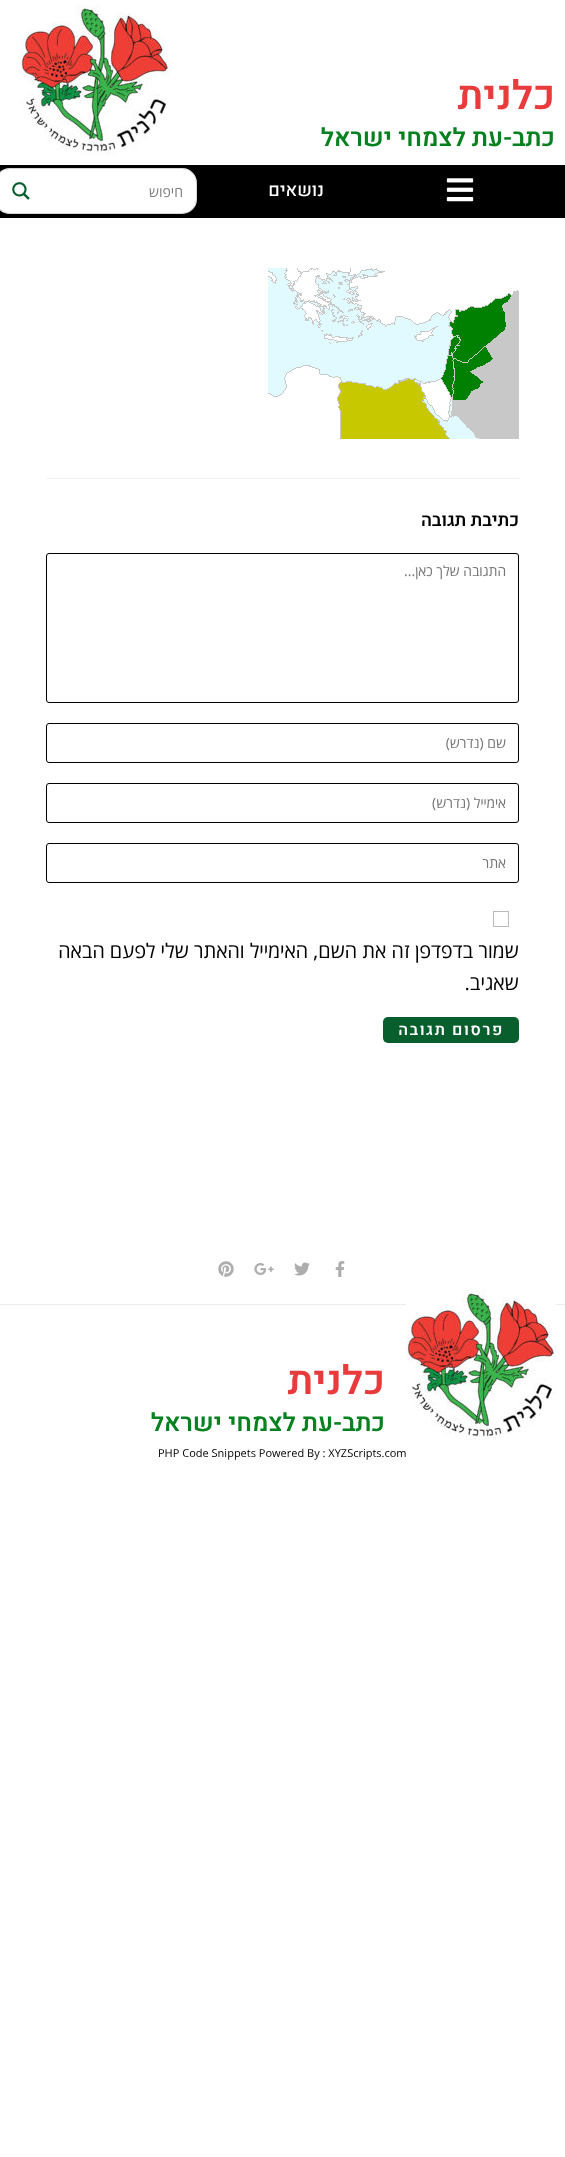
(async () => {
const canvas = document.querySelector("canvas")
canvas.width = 565
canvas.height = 2157
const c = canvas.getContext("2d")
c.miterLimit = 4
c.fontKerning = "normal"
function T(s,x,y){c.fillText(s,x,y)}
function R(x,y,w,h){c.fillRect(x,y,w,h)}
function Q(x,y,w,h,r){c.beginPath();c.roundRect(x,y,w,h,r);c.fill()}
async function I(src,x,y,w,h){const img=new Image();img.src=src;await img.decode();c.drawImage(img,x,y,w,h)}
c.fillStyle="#fff"
R(0,0,565,2157)
c.direction="rtl"
c.font="600 40px Heebo"
c.fillStyle="#e93a3c"
T("כלנית",555,109)
c.font="600 25px Heebo"
c.fillStyle="#06811f"
T("כתב-עת לצמחי ישראל",555,146)
await I("1.png",20,5,150,150)
c.fillStyle="#000"
R(0,165,565,53)
await I("2.png",446,178,28,24)
c.font="500 18px Heebo"
c.fillStyle="#fff"
T("נושאים",324,196)
Q(-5,168,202,46,15)
c.beginPath()
c.roundRect(-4.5,168.5,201,45,14.5)
c.strokeStyle="#7a7a7a4f"
c.stroke()
c.font="14px Open Sans"
c.fillStyle="#7d7d7d"
T("חיפוש",183,197)
await I("3.png",12,182,18,18)
await I("4.png",268,268,251,171)
c.fillStyle="#f1f1f1"
R(46,478,473,1)
c.font="600 18px Heebo"
c.fillStyle="#000"
T("כתיבת תגובה",519,526)
c.beginPath()
c.roundRect(46.5,553.5,472,149,2.5)
c.strokeStyle="#000"
c.stroke()
c.font="14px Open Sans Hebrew"
c.fillStyle="#757575"
T("התגובה שלך כאן...",506,576)
c.beginPath()
c.roundRect(46.5,723.5,472,39,2.5)
c.stroke()
T("שם (נדרש)",506,748)
c.beginPath()
c.roundRect(46.5,783.5,472,39,2.5)
c.stroke()
T("אימייל (נדרש)",506,808)
c.beginPath()
c.roundRect(46.5,843.5,472,39,2.5)
c.stroke()
T("אתר",506,868)
c.strokeStyle="#bbb"
c.strokeRect(493.5,911.5,15,15)
c.font="20px Open Sans Hebrew"
c.fillStyle="#000"
T("שמור בדפדפן זה את השם, האימייל והאתר שלי לפעם הבאה",519,958)
T("שאגיב.",519,990)
c.fillStyle="#085e2c"
Q(383,1017,136,26,5)
c.letterSpacing="1.6px"
c.font="600 16px Heebo"
c.fillStyle="#fff"
T("פרסום תגובה",504,1035)
await I("5.png",335,1261,10,16)
await I("6.png",294,1262,16,14)
await I("7.png",254,1263,20,12)
await I("8.png",218,1261,16,16)
c.fillStyle="#ebebeb"
R(0,1304,565,1)
await I("1.png",406,1290,150,150)
c.letterSpacing="0px"
c.font="600 40px Heebo"
c.fillStyle="#e93a3c"
T("כלנית",385,1394)
c.font="600 25px Heebo"
c.fillStyle="#06811f"
T("כתב-עת לצמחי ישראל",385,1431)
c.direction="ltr"
c.font="11px Open Sans Hebrew"
c.fillStyle="#000"
T("PHP Code Snippets Powered By : XYZScripts.com",158,1457)
})()
